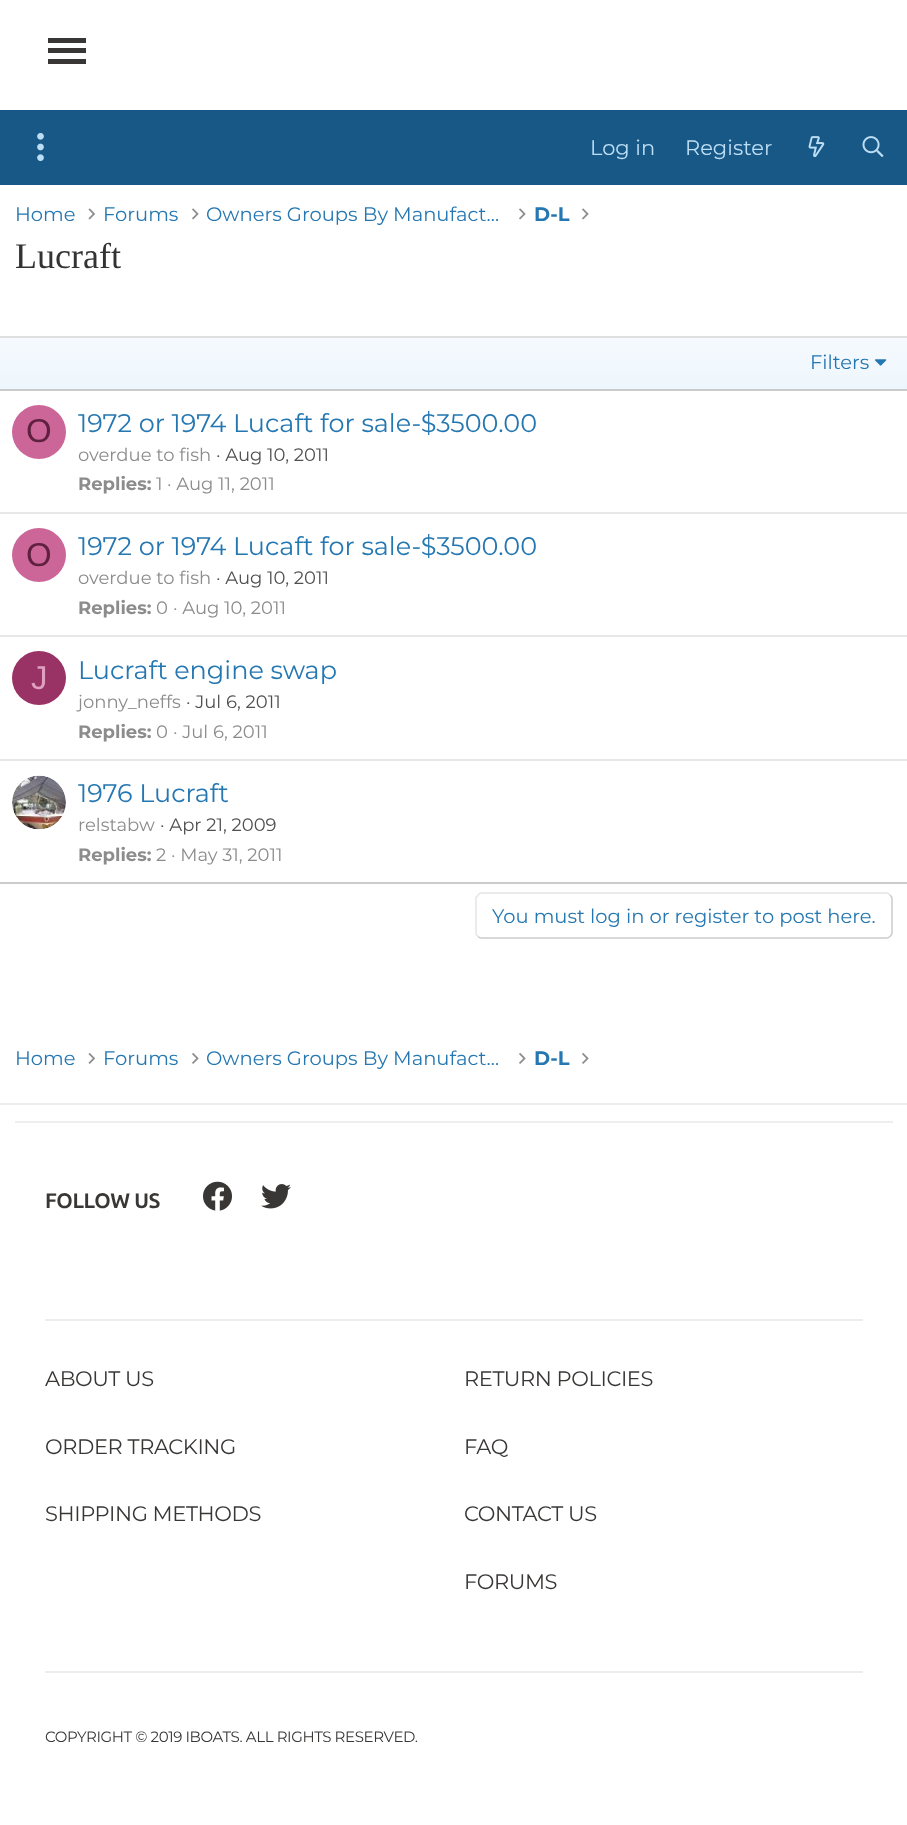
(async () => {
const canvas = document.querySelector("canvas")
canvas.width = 907
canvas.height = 1825
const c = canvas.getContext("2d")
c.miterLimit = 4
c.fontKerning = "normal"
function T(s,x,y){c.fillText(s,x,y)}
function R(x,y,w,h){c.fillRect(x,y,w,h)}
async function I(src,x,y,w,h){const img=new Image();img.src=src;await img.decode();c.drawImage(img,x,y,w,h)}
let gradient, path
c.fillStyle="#fff"
R(0,0,907,1825)
c.fillStyle="#393736"
R(48,38,38,5)
R(48,48,38,5)
R(48,59,38,5)
c.fillStyle="#185886"
R(0,110,907,75)
await I("1.png",37,133,7,28)
c.font="21px Montserrat"
c.fillStyle="#bcdef5"
T("Log in",590,155)
T("Register",685,155)
await I("2.png",808,136,17,22)
await I("3.png",862,136,22,22)
c.font="19.5px Montserrat"
c.fillStyle="#2577b1"
T("Home",15,221)
await I("4.png",88,208,7,12)
T("Forums",103,221)
await I("5.png",192,208,7,12)
T("Owners Groups By Manufact…",206,221)
await I("5.png",519,208,7,12)
c.font="bold 19.5px Montserrat"
T("D-L",534,221)
await I("5.png",582,208,7,12)
c.font="36px Liberation Serif"
c.fillStyle="#333"
T("Lucraft",15,268)
c.fillStyle="#dfdfdf"
R(0,336,907,2)
c.fillStyle="#cbcbcb"
R(0,882,907,2)
gradient = c.createLinearGradient(454,389,454,338)
gradient.addColorStop(0,"#edf6fd")
gradient.addColorStop(1,"#f6fafe")
c.fillStyle = gradient
R(0,338,907,51)
c.fillStyle="#cbcbcb"
R(0,389,907,2)
c.font="19.5px Montserrat"
c.fillStyle="#2577b1"
T("Filters",810,369)
await I("6.png",875,359,12,7)
c.fillStyle="#c69"
c.beginPath()
c.arc(39,432,27,0,7)
c.fill()
c.font="33px Liberation Sans"
c.fillStyle="#602040"
T("O",26,442)
c.font="25.5px Montserrat"
c.fillStyle="#2577b1"
T("1972 or 1974 Lucaft for sale-$3500.00",78,432)
c.font="18px Montserrat"
c.fillStyle="#8c8c8c"
T("overdue to fish",78,461)
c.fillStyle="#505050"
T("· Aug 10, 2011",216,461)
c.font="bold 18px Montserrat"
c.fillStyle="#8c8c8c"
T("Replies:",78,490)
c.font="18px Montserrat"
T("1",156,490)
T("· Aug 11, 2011",167,490)
c.fillStyle="#e7e7e7"
R(0,512,907,2)
c.fillStyle="#c69"
c.beginPath()
c.arc(39,555,27,0,7)
c.fill()
c.font="33px Liberation Sans"
c.fillStyle="#602040"
T("O",26,566)
c.font="25.5px Montserrat"
c.fillStyle="#2577b1"
T("1972 or 1974 Lucaft for sale-$3500.00",78,555)
c.font="18px Montserrat"
c.fillStyle="#8c8c8c"
T("overdue to fish",78,584)
c.fillStyle="#505050"
T("· Aug 10, 2011",216,584)
c.font="bold 18px Montserrat"
c.fillStyle="#8c8c8c"
T("Replies:",78,614)
c.font="18px Montserrat"
T("0",156,614)
T("· Aug 10, 2011",173,614)
c.fillStyle="#e7e7e7"
R(0,635,907,2)
c.fillStyle="#936"
c.beginPath()
c.arc(39,678,27,0,7)
c.fill()
c.font="33px Liberation Sans"
c.fillStyle="#df9fbf"
T("J",31,689)
c.font="25.5px Montserrat"
c.fillStyle="#2577b1"
T("Lucraft engine swap",78,679)
c.font="18px Montserrat"
c.fillStyle="#8c8c8c"
T("jonny_neffs",78,708)
c.fillStyle="#505050"
T("· Jul 6, 2011",186,708)
c.font="bold 18px Montserrat"
c.fillStyle="#8c8c8c"
T("Replies:",78,738)
c.font="18px Montserrat"
T("0",156,738)
T("· Jul 6, 2011",173,738)
c.fillStyle="#e7e7e7"
R(0,759,907,2)
await I("7.png",12,775,54,55)
c.font="25.5px Montserrat"
c.fillStyle="#2577b1"
T("1976 Lucraft",78,802)
c.font="18px Montserrat"
c.fillStyle="#8c8c8c"
T("relstabw",78,831)
c.fillStyle="#505050"
T("· Apr 21, 2009",160,831)
c.font="bold 18px Montserrat"
c.fillStyle="#8c8c8c"
T("Replies:",78,861)
c.font="18px Montserrat"
T("2",156,861)
T("· May 31, 2011",171,861)
path = new Path2D("M890 895c1 1 2 2 2 3.5v34.5c0 1.5-1 2.5-2 3.5c-1 1-2 1.5-3.5 1.5h-405c-1.5 0-2.5-.5-3.5-1.5")
c.strokeStyle="#cbcbcb"
c.lineWidth=1.5
c.stroke(path)
path = new Path2D("M478 936.5c-1-1-2-2-2-3.5v-34.5c0-1.5 1-2.5 2-3.5c1-1 2-2 3.5-2h405c1.5 0 2.5 1 3.5 2")
c.strokeStyle="#e5e5e5"
c.stroke(path)
c.font="19.5px Montserrat"
c.fillStyle="#2577b1"
T("You must log in or register to post here.",492,923)
T("Home",15,1065)
await I("8.png",88,1053,7,11)
T("Forums",103,1065)
await I("9.png",192,1053,7,11)
T("Owners Groups By Manufact…",206,1065)
await I("9.png",519,1053,7,11)
c.font="bold 19.5px Montserrat"
T("D-L",534,1065)
await I("9.png",582,1053,7,11)
c.fillStyle="#eee"
R(0,1103,907,2)
R(15,1121,878,2)
c.letterSpacing="-0.4px"
c.font="bold 21px Ubuntu"
c.fillStyle="#393736"
T("FOLLOW US",45,1208)
await I("10.png",203,1181,29,30)
await I("11.png",261,1184,30,25)
c.fillStyle="#ecedee"
R(45,1319,818,2)
c.font="21px Montserrat"
c.fillStyle="#393736"
T("ABOUT US",45,1386)
T("RETURN POLICIES",464,1386)
T("ORDER TRACKING",45,1454)
T("FAQ",464,1454)
T("SHIPPING METHODS",45,1521)
T("CONTACT US",464,1521)
T("FORUMS",464,1589)
c.fillStyle="#ecedee"
R(45,1671,818,2)
c.font="15px Montserrat"
c.fillStyle="#393736"
T("COPYRIGHT © 2019 IBOATS. ALL RIGHTS RESERVED.",45,1742)
})()
